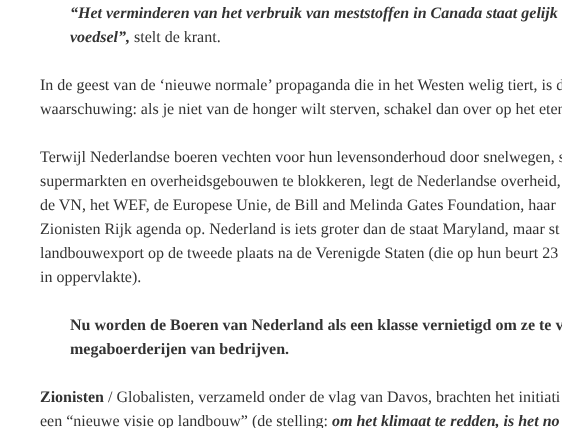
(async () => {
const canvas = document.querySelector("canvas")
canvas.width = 562
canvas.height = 428
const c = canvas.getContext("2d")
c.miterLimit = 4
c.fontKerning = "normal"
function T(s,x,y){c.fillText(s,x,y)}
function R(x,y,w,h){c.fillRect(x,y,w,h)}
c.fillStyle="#fff"
R(0,0,562,428)
c.font="italic bold 16px Liberation Serif"
c.fillStyle="#333"
T("“Het verminderen van het verbruik van meststoffen in Canada staat gelijk",70,18)
T("voedsel”,",70,42)
c.font="16px Liberation Serif"
T("stelt de krant.",134,42)
T("In de geest van de ‘nieuwe normale’ propaganda die in het Westen welig tiert, is d",40,90)
T("waarschuwing: als je niet van de honger wilt sterven, schakel dan over op het eten",40,114)
T("Terwijl Nederlandse boeren vechten voor hun levensonderhoud door snelwegen, s",40,162)
T("supermarkten en overheidsgebouwen te blokkeren, legt de Nederlandse overheid,",40,186)
T("de VN, het WEF, de Europese Unie, de Bill and Melinda Gates Foundation, haar",40,210)
T("Zionisten Rijk agenda op. Nederland is iets groter dan de staat Maryland, maar st",40,234)
T("landbouwexport op de tweede plaats na de Verenigde Staten (die op hun beurt 23",40,258)
T("in oppervlakte).",40,282)
c.font="bold 16px Liberation Serif"
T("Nu worden de Boeren van Nederland als een klasse vernietigd om ze te v",70,330)
T("megaboerderijen van bedrijven.",70,354)
T("Zionisten",40,402)
c.font="16px Liberation Serif"
T("/ Globalisten, verzameld onder de vlag van Davos, brachten het initiati",108,402)
T("een “nieuwe visie op landbouw” (de stelling:",40,426)
c.font="italic bold 16px Liberation Serif"
T("om het klimaat te redden, is het no",332,426)
})()
